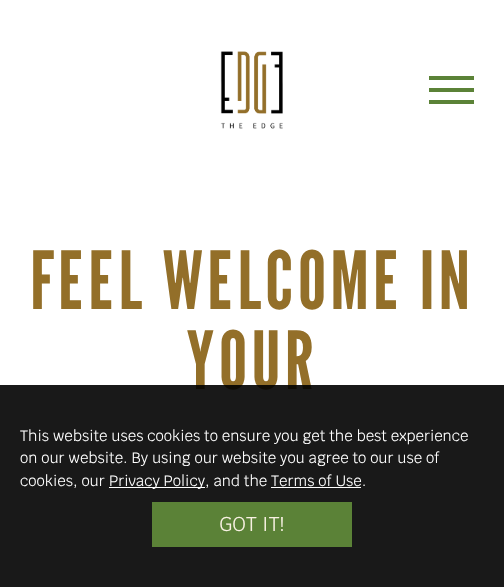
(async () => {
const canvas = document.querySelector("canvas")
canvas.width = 504
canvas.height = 587
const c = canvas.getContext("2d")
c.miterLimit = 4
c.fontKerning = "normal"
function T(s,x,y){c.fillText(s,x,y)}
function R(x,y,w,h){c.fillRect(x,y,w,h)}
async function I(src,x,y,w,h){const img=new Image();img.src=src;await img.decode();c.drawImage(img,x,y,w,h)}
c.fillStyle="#fff"
R(0,0,504,587)
await I("1.png",220,51,63,78)
c.fillStyle="#5b8237"
R(429,76,45,4)
R(429,88,45,4)
R(429,100,45,4)
c.letterSpacing="4px"
c.font="80px League Gothic"
c.fillStyle="#936f29"
T("FEEL WELCOME IN",30,309)
T("YOUR",186,389)
c.fillStyle="#000000e6"
R(0,385,504,202)
c.letterSpacing="0px"
c.font="15px Krub"
c.fillStyle="#fff"
T("This website uses cookies to ensure you get the best experience",20,441)
T("on our website. By using our website you agree to our use of",20,463)
T("cookies, our",20,486)
R(109,487,96,1)
T("Privacy Policy, and the Terms of Use.",109,486)
R(271,487,90,1)
c.fillStyle="#5b8237"
R(152,502,200,45)
c.font="20px Krub"
c.fillStyle="#f8f1e3"
T("GOT IT!",219,531)
})()
